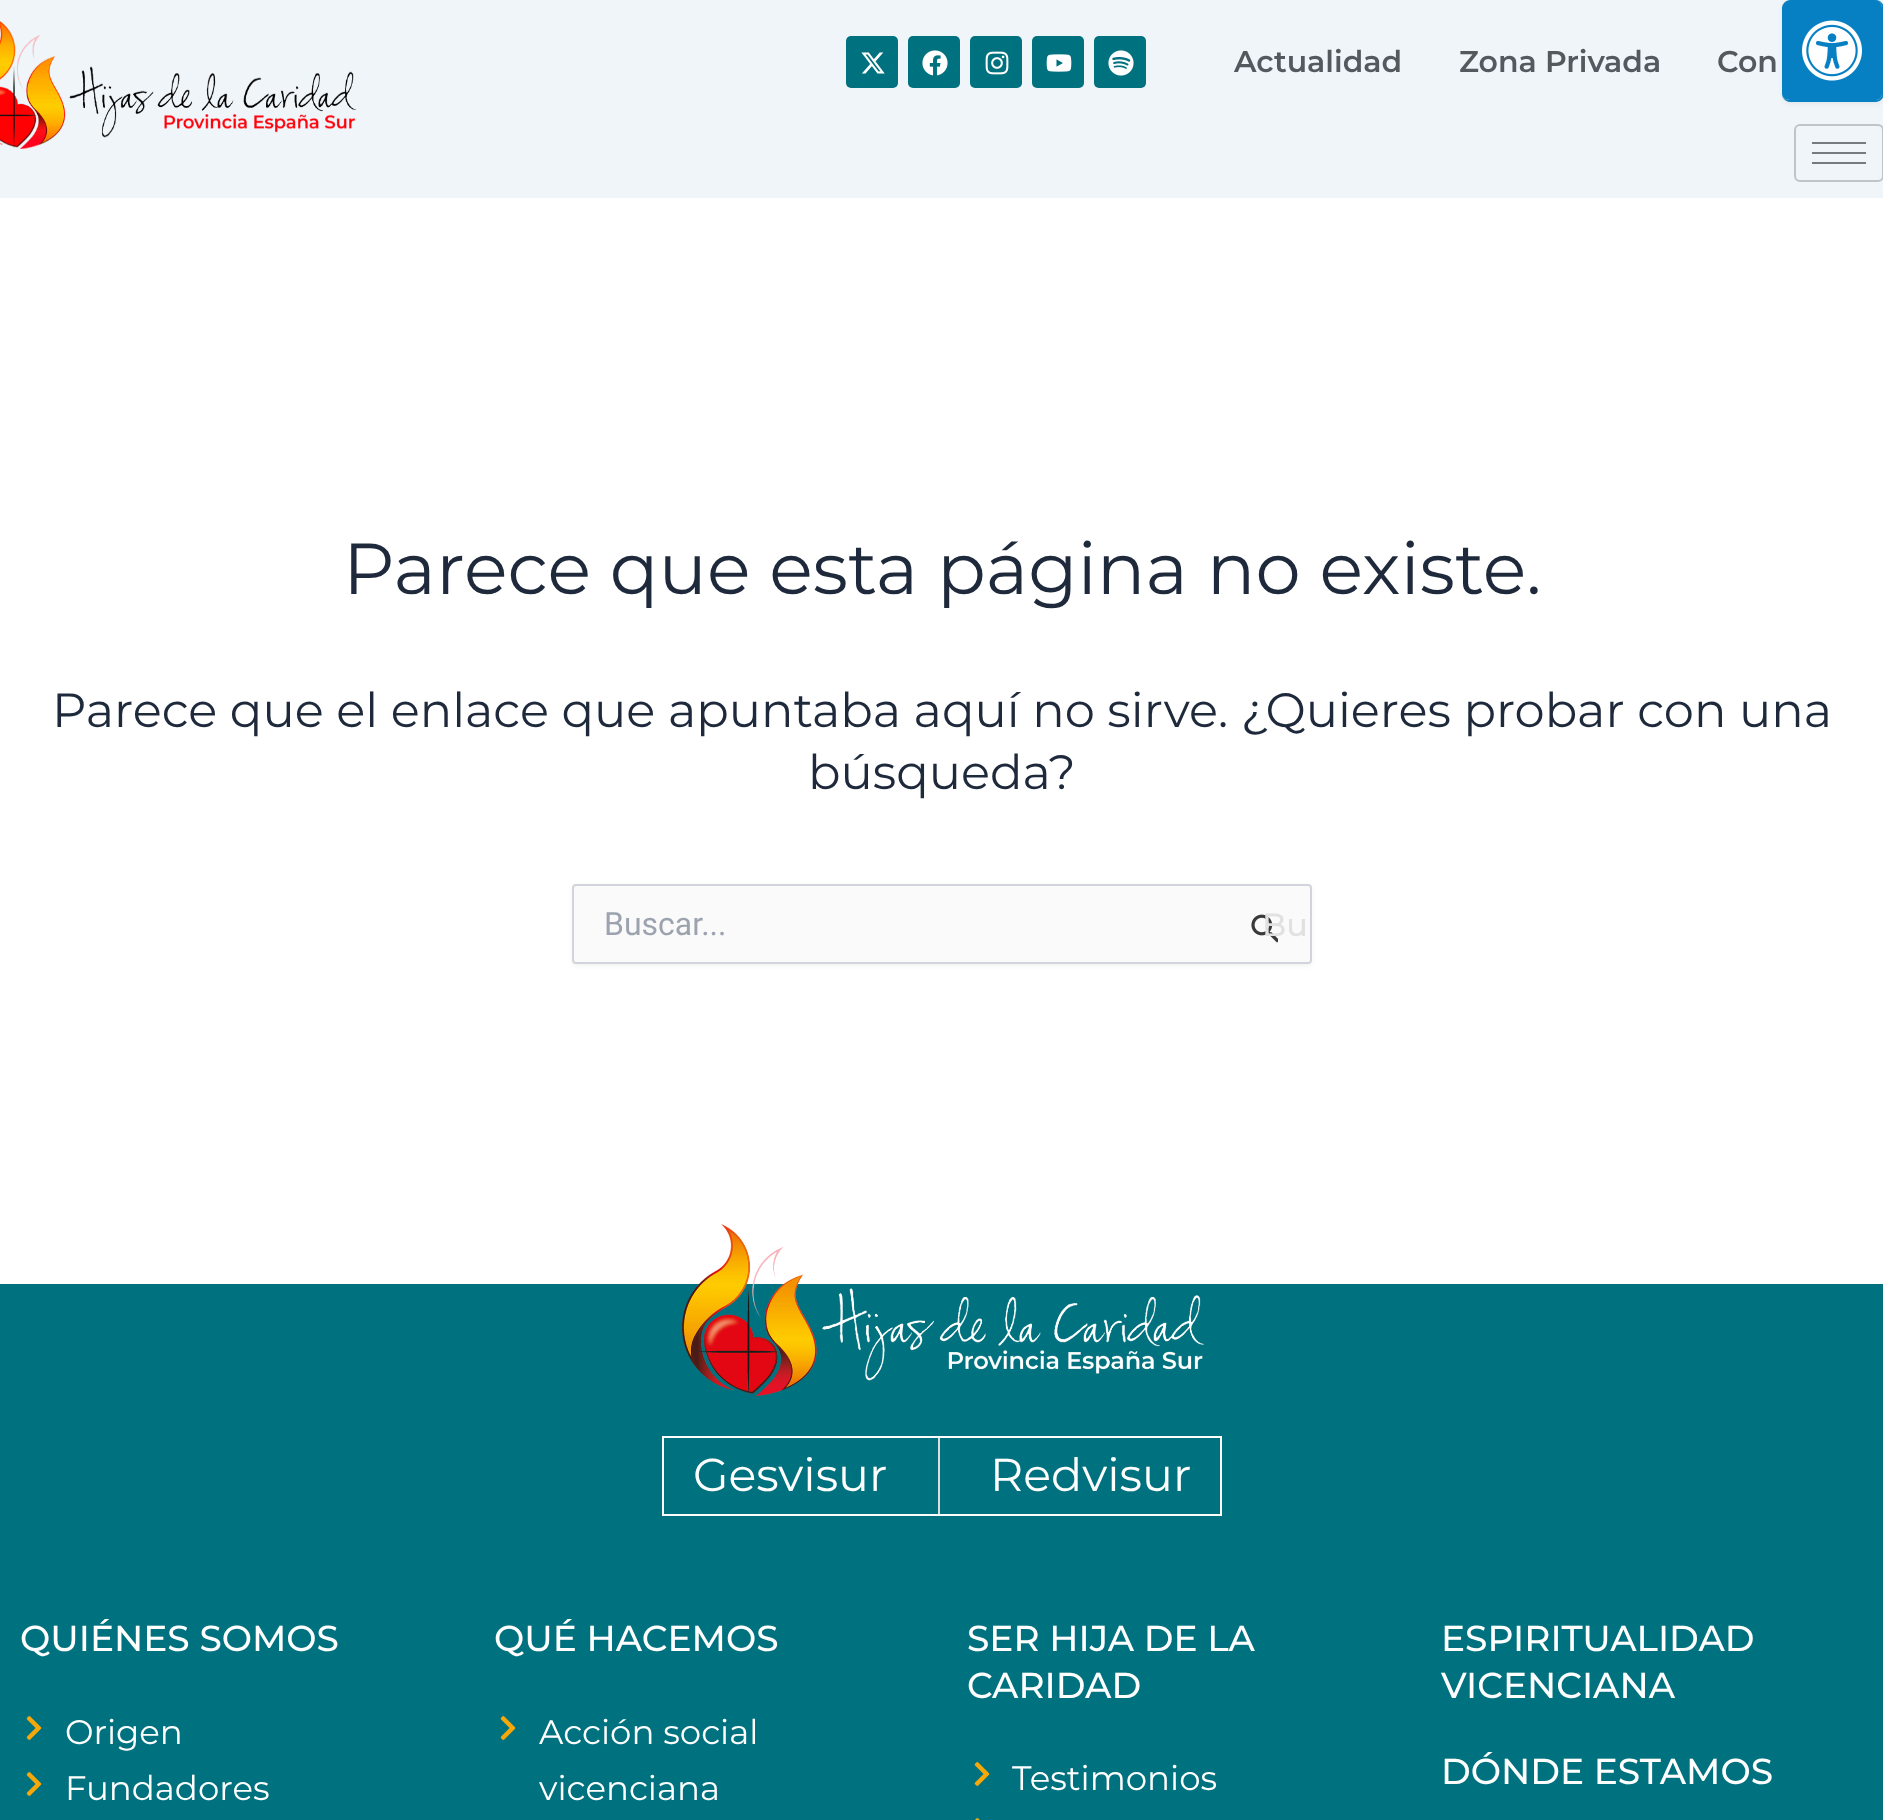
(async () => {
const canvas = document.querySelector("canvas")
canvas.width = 1883
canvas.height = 1820
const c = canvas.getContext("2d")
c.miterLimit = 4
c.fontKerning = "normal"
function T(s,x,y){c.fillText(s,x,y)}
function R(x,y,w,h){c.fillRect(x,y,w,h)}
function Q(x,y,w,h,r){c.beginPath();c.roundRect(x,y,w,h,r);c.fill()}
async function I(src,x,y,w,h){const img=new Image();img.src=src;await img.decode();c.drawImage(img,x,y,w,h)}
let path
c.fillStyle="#fff"
R(0,0,1883,1820)
c.fillStyle="#f0f5fa"
R(0,0,1883,198)
await I("1.png",0,21,356,128)
c.fillStyle="#00717e"
Q(846,36,52,52,5)
await I("2.png",861,52,24,22)
Q(908,36,52,52,5)
await I("3.png",922,50,26,26)
Q(970,36,52,52,5)
await I("4.png",985,51,24,24)
Q(1032,36,52,52,5)
await I("5.png",1046,54,26,18)
Q(1094,36,52,52,5)
await I("6.png",1108,50,26,26)
c.font="600 30px Montserrat"
c.fillStyle="#54595f"
T("Actualidad",1234,72)
T("Zona Privada",1459,72)
T("Con",1717,72)
c.beginPath()
c.roundRect(1795,125,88,56,5)
c.strokeStyle="#c0c4c8"
c.lineWidth=2
c.stroke()
c.fillStyle="#787b7d"
R(1812,142,54,2)
R(1812,152,54,2)
R(1812,162,54,2)
c.font="72px Montserrat"
c.fillStyle="#1e293b"
T("Parece que esta página no existe.",343,594)
c.font="48px Montserrat"
T("Parece que el enlace que apuntaba aquí no sirve. ¿Quieres probar con una",52,727)
T("búsqueda?",808,789)
c.fillStyle="#0000000d"
c.filter="blur(2px)"
c.beginPath()
c.roundRect(572,886,740,80,4)
c.fill()
c.filter="none"
c.fillStyle="#fafafa"
c.beginPath()
c.roundRect(573,885,738,78,3)
c.fill()
c.strokeStyle="#d1d5db"
c.stroke()
c.font="32px Roboto"
c.fillStyle="#9ca3af"
T("Buscar...",604,935)
await I("7.png",1251,914,27,29)
c.font="500 32px Montserrat"
c.fillStyle="#e1e1e2"
T("Bu",1262,936)
c.fillStyle="#00717e"
R(0,1284,1883,536)
await I("8.png",682,1224,522,172)
c.strokeStyle="#fff"
c.strokeRect(663,1437,558,78)
c.font="46px Montserrat"
c.fillStyle="#fff"
T("Gesvisur",693,1491)
c.fillStyle="#ddd"
R(938,1438,2,76)
c.fillStyle="#fff"
T("Redvisur",990,1491)
c.font="500 36px Montserrat"
T("QUIÉNES SOMOS",20,1651)
await I("9.png",26,1716,16,24)
c.font="34px Montserrat"
T("Origen",65,1744)
await I("9.png",26,1772,16,24)
T("Fundadores",65,1800)
c.font="500 36px Montserrat"
T("QUÉ HACEMOS",494,1651)
await I("9.png",500,1716,16,24)
c.font="34px Montserrat"
T("Acción social",539,1744)
T("vicenciana",539,1800)
c.font="500 36px Montserrat"
T("SER HIJA DE LA",967,1651)
T("CARIDAD",967,1698)
await I("9.png",974,1762,16,24)
c.font="34px Montserrat"
T("Testimonios",1012,1790)
await I("10.png",975,1818,5,2)
c.font="500 36px Montserrat"
T("ESPIRITUALIDAD",1441,1651)
T("VICENCIANA",1441,1698)
T("DÓNDE ESTAMOS",1441,1784)
c.fillStyle="#0000000d"
c.filter="blur(2px)"
c.beginPath()
c.roundRect(1782,2,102,102,8)
c.fill()
c.filter="none"
c.fillStyle="#0780c3"
path = new Path2D("M1790 0h86c3 0 6 4 6 8v86c0 3-3 6-6 6h-86c-4 0-8-3-8-6v-86c0-4 4-8 8-8z")
c.fill(path)
path = new Path2D("M1790 0h86c4 0 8 4 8 8v86c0 4-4 8-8 8h-86c-4 0-8-4-8-8v-86c0-4 4-8 8-8zm0 0h86c3 0 6 4 6 8v86c0 3-3 6-6 6h-86c-4 0-8-3-8-6v-86c0-4 4-8 8-8z")
c.fill(path,"evenodd")
await I("11.png",1802,20,60,61)
})()
